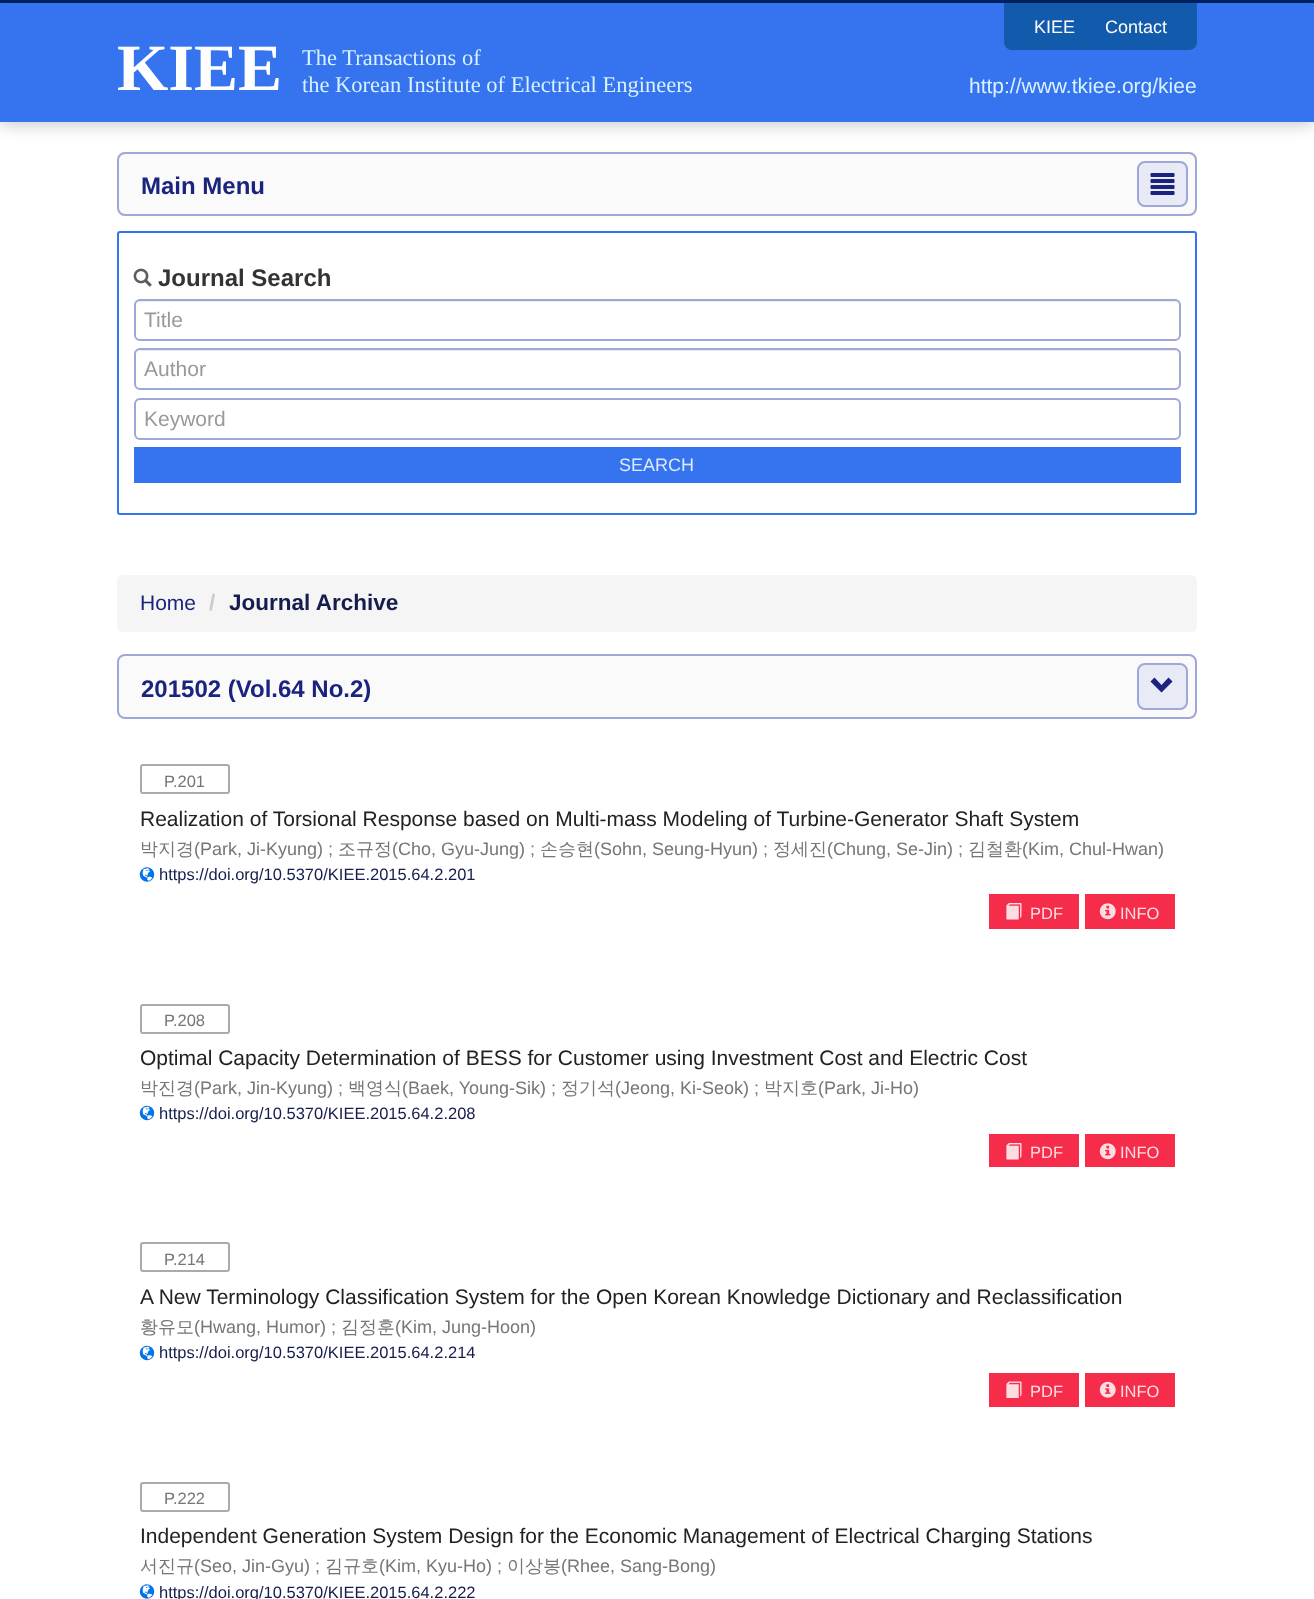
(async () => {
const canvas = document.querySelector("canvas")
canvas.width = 1314
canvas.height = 1599
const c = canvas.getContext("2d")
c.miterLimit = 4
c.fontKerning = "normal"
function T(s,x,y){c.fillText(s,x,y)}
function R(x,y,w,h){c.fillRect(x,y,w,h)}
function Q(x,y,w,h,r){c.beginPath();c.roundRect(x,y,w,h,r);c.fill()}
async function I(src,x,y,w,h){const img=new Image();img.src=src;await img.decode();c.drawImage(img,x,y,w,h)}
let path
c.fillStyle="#fff"
R(0,0,1314,1599)
c.fillStyle="#00236a"
R(0,0,1314,3)
c.fillStyle="#00000040"
c.filter="blur(9px)"
c.beginPath()
c.rect(0,5,1314,118)
c.fill()
c.filter="none"
c.fillStyle="#3573ef"
R(0,3,1314,119)
c.fillStyle="#125aac"
c.beginPath()
c.roundRect(1004,3,193,47,[0,0,8,8])
c.fill()
c.font="18px Liberation Sans"
c.fillStyle="#fefefe"
T("KIEE",1034,33)
T("Contact",1105,33)
c.font="bold 66px Liberation Serif"
T("KIEE",117,90)
c.font="22.5px Liberation Serif"
c.fillStyle="#d8f2ff"
T("The Transactions of",302,65)
T("the Korean Institute of Electrical Engineers",302,92)
c.font="21px Liberation Sans"
T("http://www.tkiee.org/kiee",969,93)
c.fillStyle="#fafafa"
c.beginPath()
c.roundRect(118,153,1078,62,7)
c.fill()
c.strokeStyle="#9ea7d9"
c.lineWidth=2
c.stroke()
c.font="bold 24px Liberation Sans"
c.fillStyle="#1a237e"
T("Main Menu",141,194)
c.fillStyle="#e8eaf6"
c.beginPath()
c.roundRect(1138,162,49,44,7)
c.fill()
c.stroke()
await I("1.png",1150,173,25,22)
c.beginPath()
c.roundRect(118,232,1078,282,2)
c.strokeStyle="#3573ef"
c.stroke()
await I("2.png",133,268,19,19)
c.fillStyle="#333"
T("Journal Search",158,286)
c.fillStyle="#ececec"
path = new Path2D("M140 302h1034c3 0 5 2 5 4c0-3-2-6-5-6h-1034c-3 0-5 3-5 6c0-2 2-4 5-4z")
c.fill(path)
c.beginPath()
c.roundRect(135,300,1045,40,5)
c.strokeStyle="#9ea7d9"
c.stroke()
c.font="21px Liberation Sans"
c.fillStyle="#999"
T("Title",144,327)
c.fillStyle="#ececec"
path = new Path2D("M140 351h1034c3 0 5 2 5 5c0-3-2-6-5-6h-1034c-3 0-5 3-5 6c0-3 2-5 5-5z")
c.fill(path)
c.beginPath()
c.roundRect(135,349,1045,40,5)
c.stroke()
c.fillStyle="#999"
T("Author",144,376)
c.fillStyle="#ececec"
path = new Path2D("M140 400h1034c3 0 5 3 5 5c0-3-2-6-5-6h-1034c-3 0-5 3-5 6c0-2 2-5 5-5z")
c.fill(path)
c.beginPath()
c.roundRect(135,399,1045,40,5)
c.stroke()
c.fillStyle="#999"
T("Keyword",144,426)
c.fillStyle="#3573ef"
R(134,447,1047,36)
c.font="18px Liberation Sans"
c.fillStyle="#dfe9fc"
T("SEARCH",619,471)
c.fillStyle="#f5f5f5"
Q(117,575,1080,57,6)
c.font="21px Liberation Sans"
c.fillStyle="#1a237e"
T("Home",140,610)
c.font="bold 22.5px Liberation Sans"
c.fillStyle="#ccc"
T("/",209,610)
c.fillStyle="#151d4c"
T("Journal Archive",229,610)
c.fillStyle="#fafafa"
c.beginPath()
c.roundRect(118,655,1078,63,7)
c.fill()
c.stroke()
c.font="bold 24px Liberation Sans"
c.fillStyle="#1a237e"
T("201502 (Vol.64 No.2)",141,697)
c.fillStyle="#e8eaf6"
c.beginPath()
c.roundRect(1138,664,49,45,7)
c.fill()
c.stroke()
c.fillStyle="#1a237e"
path = new Path2D("M1172.5 681.5l-11 11l-11-11l4-4l7 7.5l7-7.5z")
c.fill(path)
c.beginPath()
c.roundRect(141,765,88,28,2)
c.strokeStyle="#aaa"
c.stroke()
c.font="16.5px Liberation Sans"
c.fillStyle="#767676"
T("P.201",164,787)
c.font="21px Liberation Sans"
c.fillStyle="#222"
T("Realization of Torsional Response based on Multi-mass Modeling of Turbine-Generator Shaft System",140,826)
c.font="500 18px WenQuanYi Zen Hei"
c.fillStyle="#767676"
T("박지경",140,855)
c.font="18px Liberation Sans"
T("(Park, Ji-Kyung) ;",194,855)
c.font="500 18px WenQuanYi Zen Hei"
T("조규정",338,855)
c.font="18px Liberation Sans"
T("(Cho, Gyu-Jung) ;",392,855)
c.font="500 18px WenQuanYi Zen Hei"
T("손승현",540,855)
c.font="18px Liberation Sans"
T("(Sohn, Seung-Hyun) ;",594,855)
c.font="500 18px WenQuanYi Zen Hei"
T("정세진",773,855)
c.font="18px Liberation Sans"
T("(Chung, Se-Jin) ;",827,855)
c.font="500 18px WenQuanYi Zen Hei"
T("김철환",968,855)
c.font="18px Liberation Sans"
T("(Kim, Chul-Hwan)",1022,855)
await I("3.png",139,867,16,15)
c.font="16.5px Liberation Sans"
c.fillStyle="#151d4c"
T("https://doi.org/10.5370/KIEE.2015.64.2.201",159,880)
c.fillStyle="#f52c4a"
R(989,894,90,35)
await I("4.png",1006,903,16,17)
c.fillStyle="#fddde2"
T("PDF",1030,919)
c.fillStyle="#f52c4a"
R(1085,894,90,35)
await I("5.png",1099,903,17,17)
c.fillStyle="#fddde2"
T("INFO",1120,919)
c.beginPath()
c.roundRect(141,1005,88,28,2)
c.stroke()
c.fillStyle="#767676"
T("P.208",164,1026)
c.font="21px Liberation Sans"
c.fillStyle="#222"
T("Optimal Capacity Determination of BESS for Customer using Investment Cost and Electric Cost",140,1065)
c.font="500 18px WenQuanYi Zen Hei"
c.fillStyle="#767676"
T("박진경",140,1094)
c.font="18px Liberation Sans"
T("(Park, Jin-Kyung) ;",194,1094)
c.font="500 18px WenQuanYi Zen Hei"
T("백영식",348,1094)
c.font="18px Liberation Sans"
T("(Baek, Young-Sik) ;",402,1094)
c.font="500 18px WenQuanYi Zen Hei"
T("정기석",561,1094)
c.font="18px Liberation Sans"
T("(Jeong, Ki-Seok) ;",615,1094)
c.font="500 18px WenQuanYi Zen Hei"
T("박지호",764,1094)
c.font="18px Liberation Sans"
T("(Park, Ji-Ho)",818,1094)
await I("6.png",139,1105,16,16)
c.font="16.5px Liberation Sans"
c.fillStyle="#151d4c"
T("https://doi.org/10.5370/KIEE.2015.64.2.208",159,1119)
c.fillStyle="#f52c4a"
R(989,1134,90,33)
await I("4.png",1006,1143,16,17)
c.fillStyle="#fddde2"
T("PDF",1030,1158)
c.fillStyle="#f52c4a"
R(1085,1134,90,33)
await I("5.png",1099,1143,17,17)
c.fillStyle="#fddde2"
T("INFO",1120,1158)
c.beginPath()
c.roundRect(141,1243,88,28,2)
c.stroke()
c.fillStyle="#767676"
T("P.214",164,1265)
c.font="21px Liberation Sans"
c.fillStyle="#222"
T("A New Terminology Classification System for the Open Korean Knowledge Dictionary and Reclassification",140,1304)
c.font="500 18px WenQuanYi Zen Hei"
c.fillStyle="#767676"
T("황유모",140,1333)
c.font="18px Liberation Sans"
T("(Hwang, Humor) ;",194,1333)
c.font="500 18px WenQuanYi Zen Hei"
T("김정훈",341,1333)
c.font="18px Liberation Sans"
T("(Kim, Jung-Hoon)",395,1333)
await I("6.png",139,1345,16,16)
c.font="16.5px Liberation Sans"
c.fillStyle="#151d4c"
T("https://doi.org/10.5370/KIEE.2015.64.2.214",159,1358)
c.fillStyle="#f52c4a"
R(989,1373,90,34)
await I("7.png",1006,1381,16,17)
c.fillStyle="#fddde2"
T("PDF",1030,1397)
c.fillStyle="#f52c4a"
R(1085,1373,90,34)
await I("8.png",1099,1381,17,17)
c.fillStyle="#fddde2"
T("INFO",1120,1397)
c.beginPath()
c.roundRect(141,1483,88,28,2)
c.stroke()
c.fillStyle="#767676"
T("P.222",164,1504)
c.font="21px Liberation Sans"
c.fillStyle="#222"
T("Independent Generation System Design for the Economic Management of Electrical Charging Stations",140,1543)
c.font="500 18px WenQuanYi Zen Hei"
c.fillStyle="#767676"
T("서진규",140,1572)
c.font="18px Liberation Sans"
T("(Seo, Jin-Gyu) ;",194,1572)
c.font="500 18px WenQuanYi Zen Hei"
T("김규호",325,1572)
c.font="18px Liberation Sans"
T("(Kim, Kyu-Ho) ;",379,1572)
c.font="500 18px WenQuanYi Zen Hei"
T("이상봉",507,1572)
c.font="18px Liberation Sans"
T("(Rhee, Sang-Bong)",561,1572)
await I("3.png",139,1584,16,15)
c.font="16.5px Liberation Sans"
c.fillStyle="#151d4c"
T("https://doi.org/10.5370/KIEE.2015.64.2.222",159,1598)
})()
